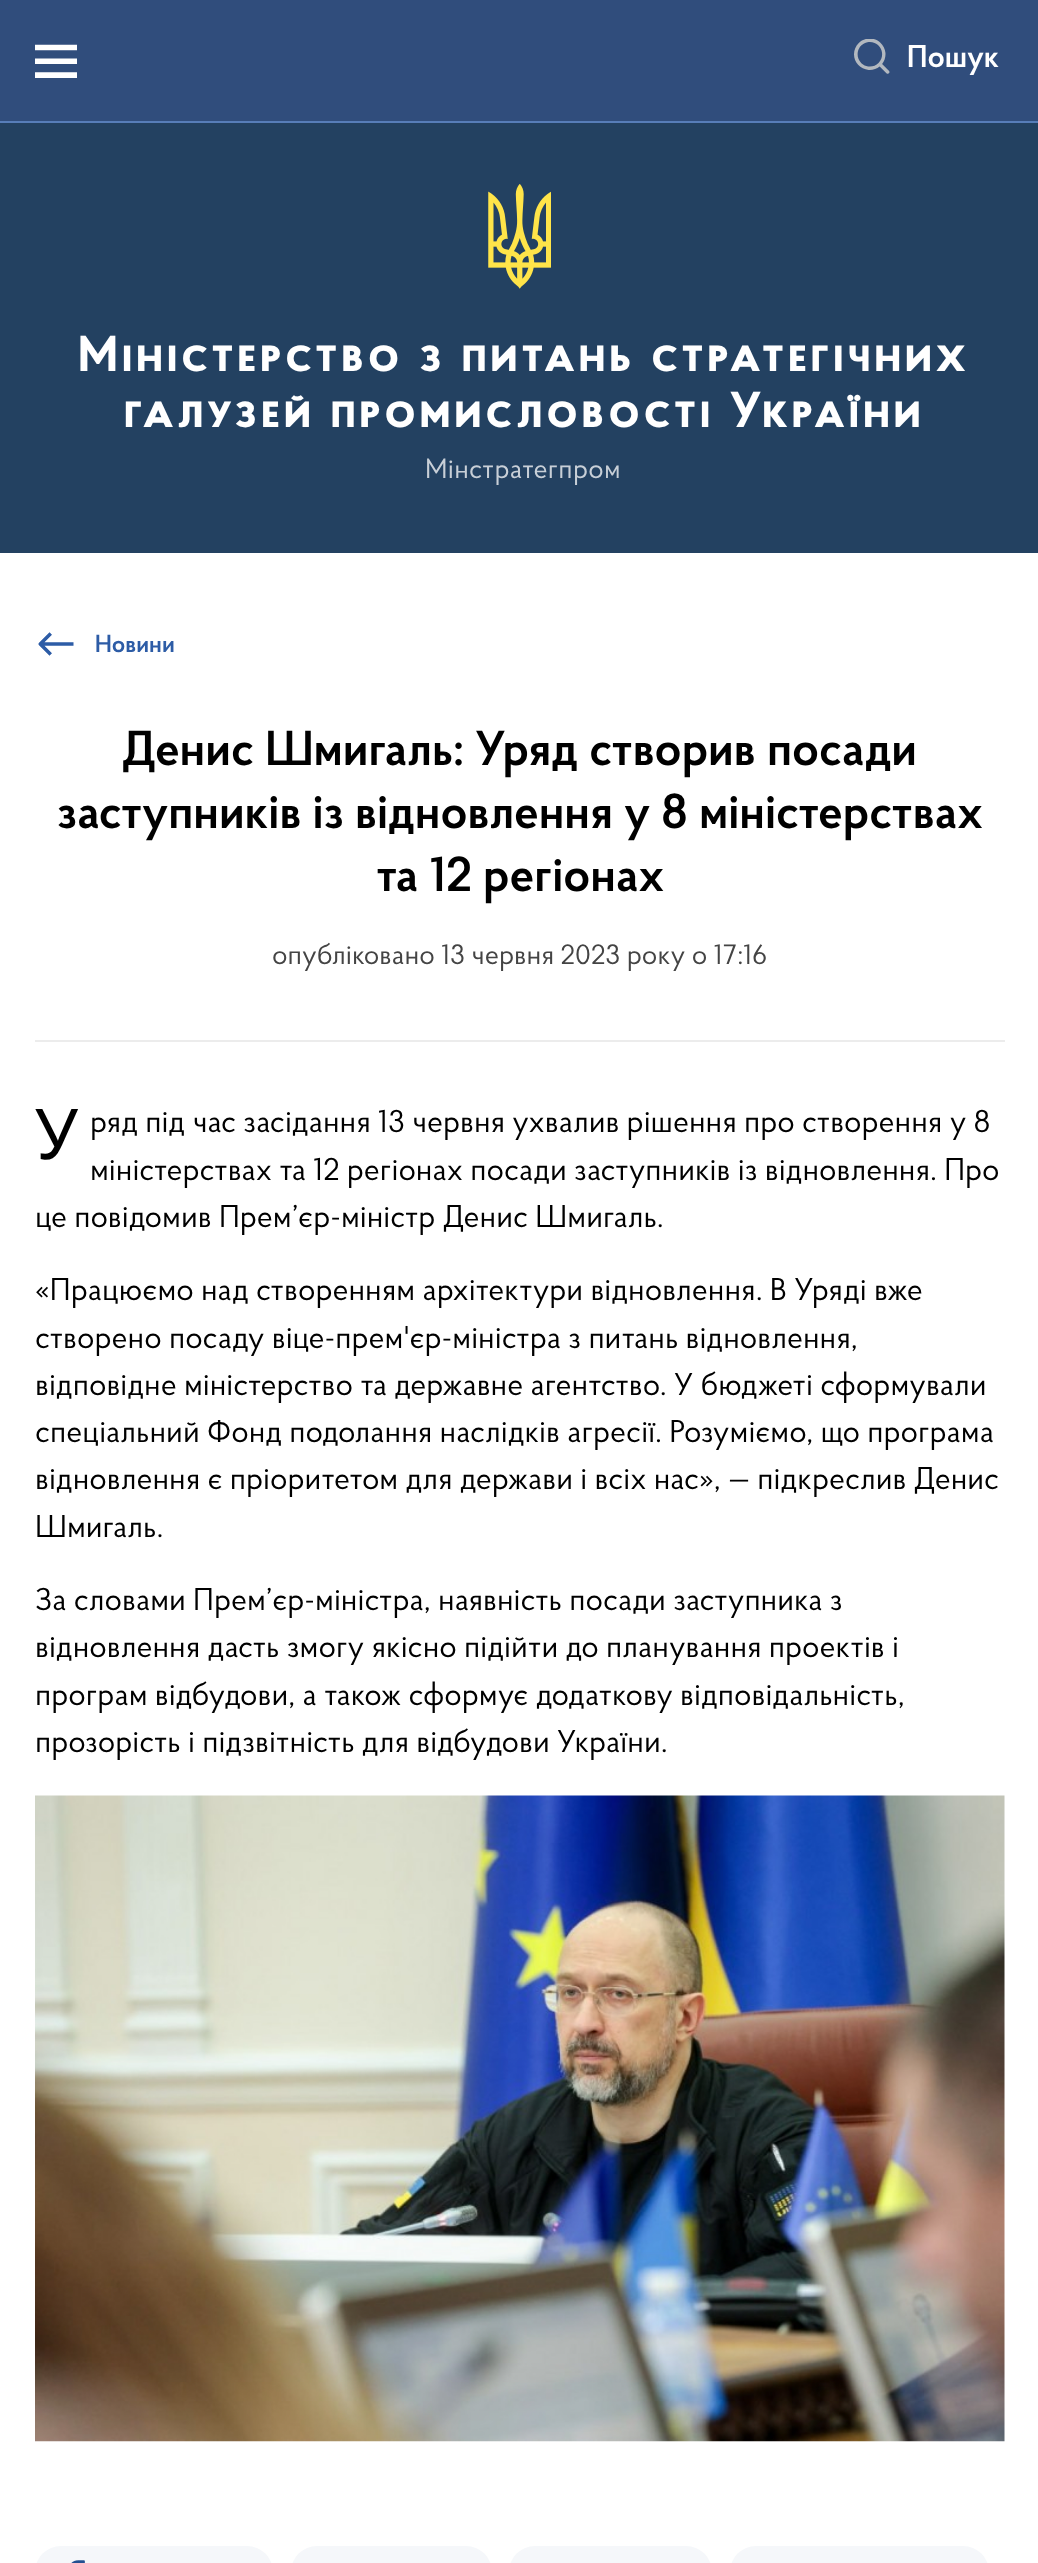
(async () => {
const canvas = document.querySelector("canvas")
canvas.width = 1038
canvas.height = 2563
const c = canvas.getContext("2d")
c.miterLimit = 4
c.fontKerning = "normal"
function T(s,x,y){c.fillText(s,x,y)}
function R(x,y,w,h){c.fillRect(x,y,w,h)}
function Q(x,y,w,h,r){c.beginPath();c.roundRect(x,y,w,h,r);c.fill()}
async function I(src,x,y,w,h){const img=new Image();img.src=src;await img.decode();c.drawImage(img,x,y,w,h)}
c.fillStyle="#fff"
R(0,0,1038,2563)
c.fillStyle="#234161"
R(0,123,1038,430)
c.fillStyle="#304d7c"
R(0,0,1038,121)
c.fillStyle="#577db8"
R(0,121,1038,2)
await I("1.png",35,44,42,34)
await I("2.png",854,39,36,35)
c.font="600 31.5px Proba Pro"
c.fillStyle="#fff"
T("Пошук",907,67)
await I("3.png",488,184,63,105)
c.letterSpacing="4.2px"
c.font="bold 50.4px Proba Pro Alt"
T("Міністерство з питань стратегічних",78,371)
T("галузей промисловості України",124,427)
c.letterSpacing="0.3px"
c.font="27.75px Proba Pro"
c.fillStyle="#c8cfd7"
T("Мінстратегпром",425,478)
await I("4.png",38,632,36,24)
c.letterSpacing="0px"
c.font="600 24.5px Proba Pro"
c.fillStyle="#2d5ca6"
T("Новини",95,652)
c.font="600 49px Proba Pro"
c.fillStyle="#000"
T("Денис Шмигаль: Уряд створив посади",122,765)
T("заступників із відновлення у 8 міністерствах",57,828)
T("та 12 регіонах",376,891)
c.font="28px Proba Pro"
c.fillStyle="#444"
T("опубліковано 13 червня 2023 року о 17:16",272,964)
c.fillStyle="#ececec"
R(35,1040,970,2)
c.font="70px Noto Sans"
c.fillStyle="#000"
T("У",35,1159)
c.font="31.5px Proba Pro"
T("ряд під час засідання 13 червня ухвалив рішення про створення у 8",90,1132)
T("міністерствах та 12 регіонах посади заступників із відновлення. Про",90,1180)
T("це повідомив Прем’єр-міністр Денис Шмигаль.",35,1227)
T("«Працюємо над створенням архітектури відновлення. В Уряді вже",35,1300)
T("створено посаду віце-прем'єр-міністра з питань відновлення,",35,1348)
T("відповідне міністерство та державне агентство. У бюджеті сформували",35,1395)
T("спеціальний Фонд подолання наслідків агресії. Розуміємо, що програма",35,1442)
T("відновлення є пріоритетом для держави і всіх нас», — підкреслив Денис",35,1489)
T("Шмигаль.",35,1537)
T("За словами Прем’єр-міністра, наявність посади заступника з",35,1610)
T("відновлення дасть змогу якісно підійти до планування проектів і",35,1657)
T("програм відбудови, а також сформує додаткову відповідальність,",35,1705)
T("прозорість і підзвітність для відбудови України.",35,1752)
await I("5.png",35,1795,970,647)
c.fillStyle="#f5f7fa"
Q(35,2546,238,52,34.5)
await I("6.png",71,2560,14,3)
Q(291,2546,201,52,34.5)
Q(509,2546,203,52,34.5)
Q(730,2546,259,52,34.5)
})()
